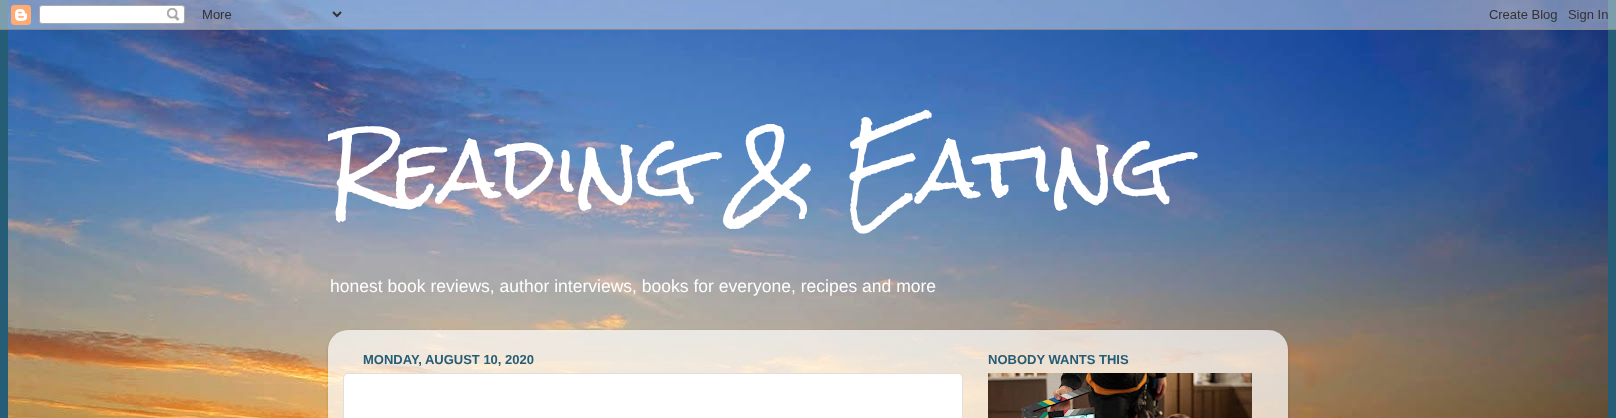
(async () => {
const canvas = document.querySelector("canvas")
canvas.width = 1616
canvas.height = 418
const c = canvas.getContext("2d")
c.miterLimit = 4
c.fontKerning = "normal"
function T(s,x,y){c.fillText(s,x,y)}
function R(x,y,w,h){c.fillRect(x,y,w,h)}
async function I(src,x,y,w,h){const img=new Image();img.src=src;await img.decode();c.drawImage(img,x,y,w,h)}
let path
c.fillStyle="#255d76"
R(0,0,1616,418)
await I("1.png",8,0,1600,418)
await I("2.png",0,0,1616,30)
c.save()
c.beginPath()
c.rect(328,50,960,274)
c.clip()
c.font="80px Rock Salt"
c.fillStyle="#fff"
T("Reading & Eating",328,200)
c.restore()
c.font="17.55px Liberation Sans"
c.fillStyle="#fff"
T("honest book reviews, author interviews, books for everyone, recipes and more",330,292)
c.save()
path = new Path2D("M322 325h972v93h-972zm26 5h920c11 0 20 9 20 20v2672h-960v-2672c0-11 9-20 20-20z")
c.clip(path,"evenodd")
c.fillStyle="#00000026"
c.filter="blur(1.5px)"
c.beginPath()
c.roundRect(328,331,960,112,20)
c.fill()
c.filter="none"
c.restore()
await I("3.png",328,330,960,88)
c.font="bold 13px Liberation Sans"
c.fillStyle="#255d76"
T("MONDAY, AUGUST 10, 2020",363,364)
c.fillStyle="#fff"
c.beginPath()
c.roundRect(343.5,373.5,619,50,4.5)
c.fill()
c.strokeStyle="#dfdfdf"
c.stroke()
c.fillStyle="#255d76"
T("NOBODY WANTS THIS",988,364)
await I("4.png",988,373,264,45)
})()
